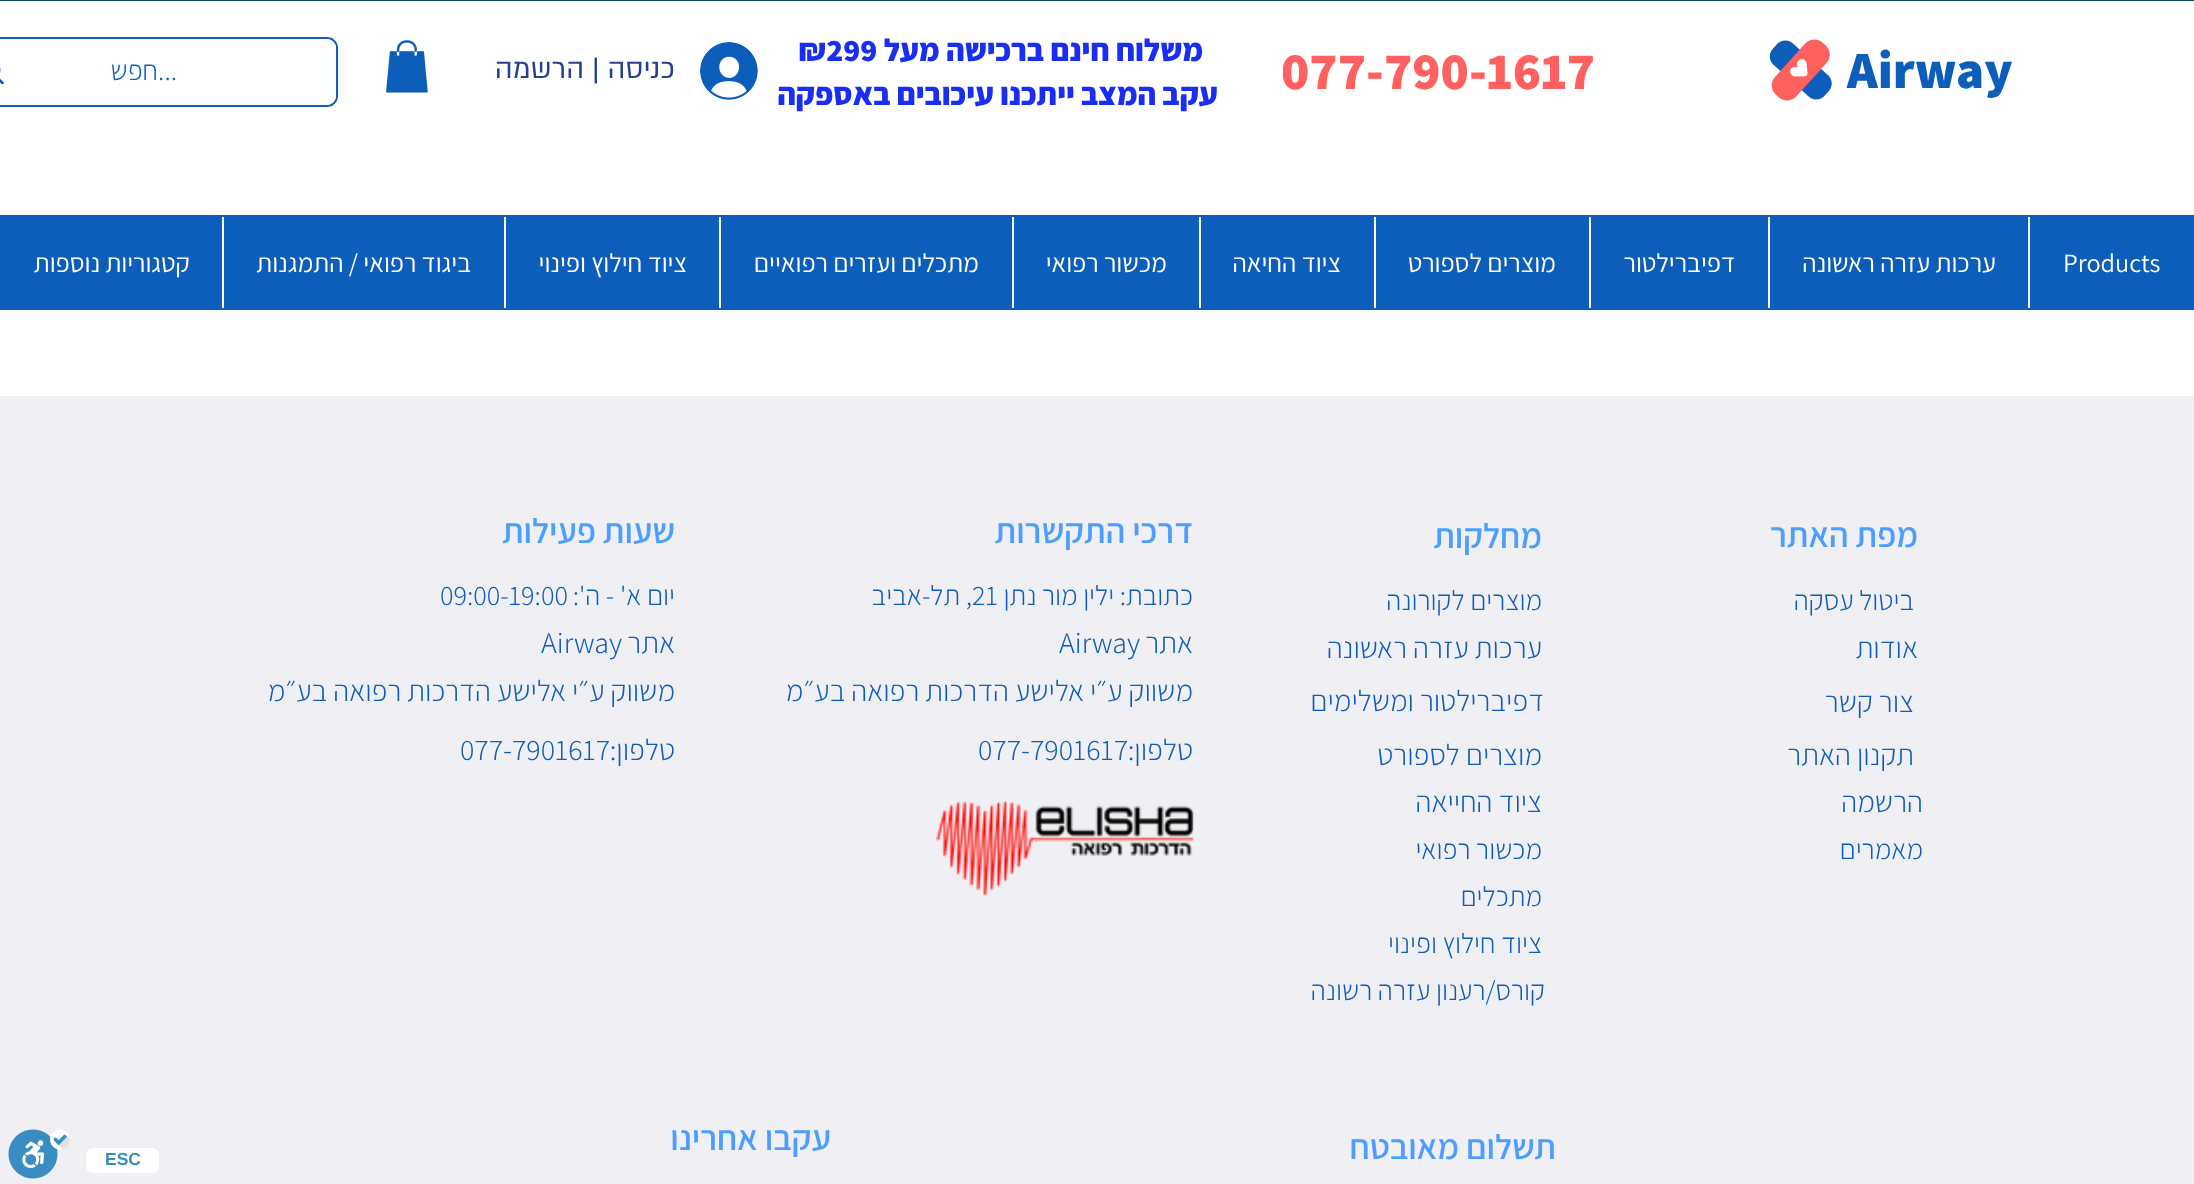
(async () => {
const canvas = document.querySelector("canvas")
canvas.width = 2194
canvas.height = 1184
const c = canvas.getContext("2d")
c.miterLimit = 4
c.fontKerning = "normal"
function T(s,x,y){c.fillText(s,x,y)}
function R(x,y,w,h){c.fillRect(x,y,w,h)}
function Q(x,y,w,h,r){c.beginPath();c.roundRect(x,y,w,h,r);c.fill()}
async function I(src,x,y,w,h){const img=new Image();img.src=src;await img.decode();c.drawImage(img,x,y,w,h)}
c.fillStyle="#f0eff3"
R(0,0,2194,1184)
c.fillStyle="#fff"
R(0,1,2194,214)
c.font="800 52.5px Assistant"
c.fillStyle="#0d5eba"
T("Airway",1847,88)
await I("1.png",1769,39,63,62)
c.fillStyle="#ff6161"
T("077-790-1617",1281,89)
c.direction="rtl"
c.font="800 31.5px Assistant"
c.fillStyle="#1a2df3"
T("משלוח חינם ברכישה מעל",1203,61)
c.direction="ltr"
T("₪299",798,61)
c.direction="rtl"
T("עקב המצב ייתכנו עיכובים באספקה",1218,105)
await I("2.png",700,42,58,58)
c.font="31.5px 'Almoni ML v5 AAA'"
c.fillStyle="#254290"
T("כניסה | הרשמה",675,78)
await I("3.png",386,40,42,53)
c.beginPath()
c.roundRect(-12,38,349,68,10)
c.strokeStyle="#0d5eba"
c.lineWidth=2
c.stroke()
c.fillStyle="#fff"
Q(-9,39,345,66,9)
c.font="300 28px Assistant"
c.fillStyle="#0d5eba"
T("...חפש",177,80)
await I("4.png",0,67,4,17)
R(0,215,2194,95)
c.fillStyle="#fff"
R(2028,217,2,91)
c.direction="ltr"
c.font="26.25px Assistant"
T("Products",2063,272)
R(1768,217,2,91)
c.direction="rtl"
T("ערכות עזרה ראשונה",1996,272)
R(1589,217,2,91)
T("דפיברילטור",1735,272)
R(1374,217,2,91)
T("מוצרים לספורט",1556,272)
R(1199,217,2,91)
T("ציוד החיאה",1341,272)
R(1012,217,2,91)
T("מכשור רפואי",1167,272)
R(719,217,2,91)
T("מתכלים ועזרים רפואיים",979,272)
R(504,217,2,91)
T("ציוד חילוץ ופינוי",687,272)
R(222,217,2,91)
T("ביגוד רפואי / התמגנות",471,272)
T("קטגוריות נוספות",190,272)
R(0,310,2194,86)
c.font="600 35px Assistant"
c.fillStyle="#4c9eff"
T("מפת האתר",1918,547)
c.font="300 28px Assistant"
c.fillStyle="#0d5eba"
T("ביטול עסקה",1914,610)
c.font="300 29.75px Assistant"
T("אודות",1918,658)
T("צור קשר",1914,712)
T("תקנון האתר",1914,765)
T("הרשמה",1923,812)
c.font="300 28px Assistant"
T("מאמרים",1923,859)
c.font="600 35px Assistant"
c.fillStyle="#4c9eff"
T("מחלקות",1542,548)
c.font="300 28px Assistant"
c.fillStyle="#0d5eba"
T("מוצרים לקורונה",1542,610)
c.font="300 29.75px Assistant"
T("ערכות עזרה ראשונה",1542,658)
T("דפיברילטור ומשלימים",1544,711)
T("מוצרים לספורט",1542,765)
T("ציוד החייאה",1542,812)
c.font="300 28px Assistant"
T("מכשור רפואי",1542,859)
T("מתכלים",1542,906)
T("ציוד חילוץ ופינוי",1542,953)
T("קורס/רענון עזרה רשונה",1545,1000)
c.font="600 35px Assistant"
c.fillStyle="#4c9eff"
T("דרכי התקשרות",1193,543)
c.font="300 28px Assistant"
c.fillStyle="#0d5eba"
T("כתובת: ילין מור נתן",1193,605)
c.direction="ltr"
T("21",972,605)
c.direction="rtl"
T(", תל-אביב",972,605)
c.font="300 29.75px Assistant"
T("אתר",1193,653)
c.direction="ltr"
T("Airway",1059,653)
c.direction="rtl"
T("משווק ע״י אלישע הדרכות רפואה בע״מ",1193,701)
T("טלפון:",1193,760)
c.direction="ltr"
T("077-7901617",978,760)
c.direction="rtl"
c.font="600 35px Assistant"
c.fillStyle="#4c9eff"
T("שעות פעילות",675,543)
c.font="300 28px Assistant"
c.fillStyle="#0d5eba"
T("יום א' - ה':",675,605)
c.direction="ltr"
T("09:00-19:00",440,605)
c.direction="rtl"
c.font="300 29.75px Assistant"
T("אתר",675,653)
c.direction="ltr"
T("Airway",541,653)
c.direction="rtl"
T("משווק ע״י אלישע הדרכות רפואה בע״מ",675,701)
T("טלפון:",675,760)
c.direction="ltr"
T("077-7901617",460,760)
await I("5.png",936,801,258,95)
c.direction="rtl"
c.font="600 35px Assistant"
c.fillStyle="#4c9eff"
T("תשלום מאובטח",1556,1159)
T("עקבו אחרינו",831,1150)
c.fillStyle="#15495f"
R(0,0,2194,1)
c.fillStyle="#fff"
Q(86,1148,73,25,7)
c.direction="ltr"
c.font="bold 17.5px Liberation Sans"
c.fillStyle="#3a8dc2"
T("ESC",105,1165)
await I("6.png",8,1129,62,50)
})()
